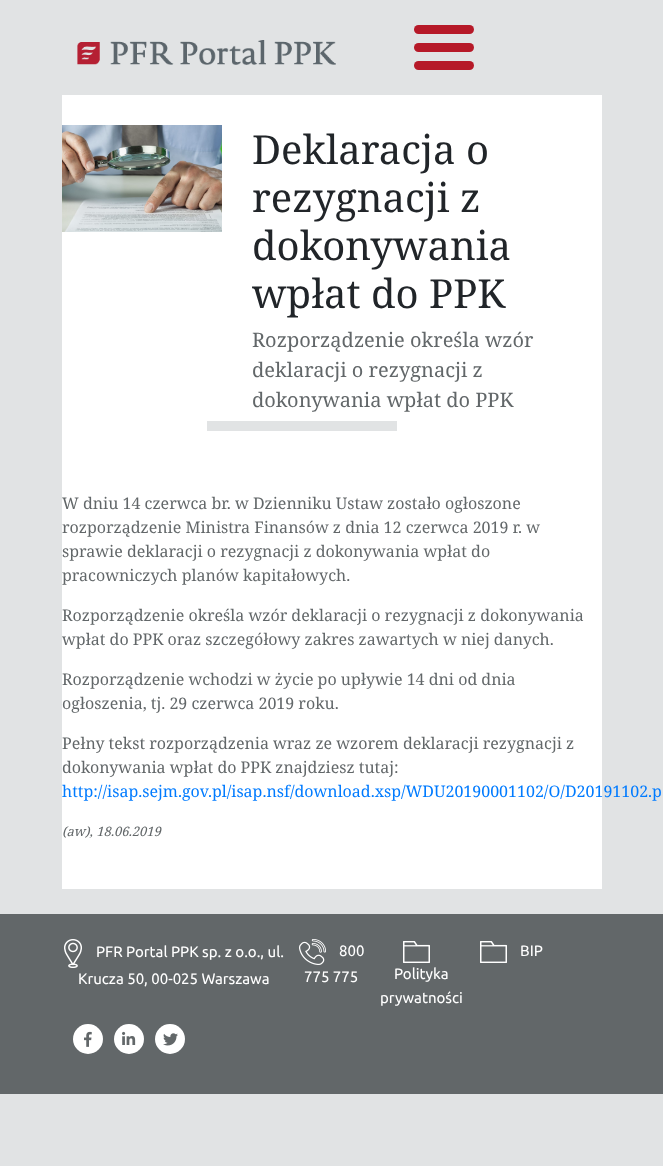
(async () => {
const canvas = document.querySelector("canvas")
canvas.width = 663
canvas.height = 1166
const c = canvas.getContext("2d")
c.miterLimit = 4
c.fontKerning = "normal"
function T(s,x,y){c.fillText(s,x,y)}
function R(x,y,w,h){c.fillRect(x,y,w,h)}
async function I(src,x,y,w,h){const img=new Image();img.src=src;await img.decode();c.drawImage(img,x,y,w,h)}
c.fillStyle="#e1e3e4"
R(0,0,663,1166)
await I("1.png",77,40,259,25)
c.fillStyle="#b61928"
c.beginPath()
c.roundRect(414,25,30,9,[4.5,0,0,4.5])
c.fill()
c.beginPath()
c.roundRect(444,25,30,9,[0,4.5,4.5,0])
c.fill()
c.beginPath()
c.roundRect(414,43,30,9,[4.5,0,0,4.5])
c.fill()
c.beginPath()
c.roundRect(444,43,30,9,[0,4.5,4.5,0])
c.fill()
c.beginPath()
c.roundRect(414,61,30,9,[4.5,0,0,4.5])
c.fill()
c.beginPath()
c.roundRect(444,61,30,9,[0,4.5,4.5,0])
c.fill()
c.fillStyle="#fff"
R(62,95,540,794)
await I("2.png",62,125,160,107)
c.font="40px Noto Serif"
c.fillStyle="#212529"
T("Deklaracja o",252,164)
T("rezygnacji z",252,212)
T("dokonywania",252,260)
T("wpłat do PPK",252,308)
c.fillStyle="#e1e3e4"
R(207,421,190,10)
c.font="20px Noto Serif"
c.fillStyle="#626769"
T("Rozporządzenie określa wzór",252,347)
T("deklaracji o rezygnacji z",252,377)
T("dokonywania wpłat do PPK",252,407)
c.font="16px Noto Serif"
T("W dniu 14 czerwca br. w Dzienniku Ustaw zostało ogłoszone",62,509)
T("rozporządzenie Ministra Finansów z dnia 12 czerwca 2019 r. w",62,533)
T("sprawie deklaracji o rezygnacji z dokonywania wpłat do",62,557)
T("pracowniczych planów kapitałowych.",62,581)
T("Rozporządzenie określa wzór deklaracji o rezygnacji z dokonywania",62,621)
T("wpłat do PPK oraz szczegółowy zakres zawartych w niej danych.",62,645)
T("Rozporządzenie wchodzi w życie po upływie 14 dni od dnia",62,685)
T("ogłoszenia, tj. 29 czerwca 2019 roku.",62,709)
T("Pełny tekst rozporządzenia wraz ze wzorem deklaracji rezygnacji z",62,749)
T("dokonywania wpłat do PPK znajdziesz tutaj:",62,773)
c.fillStyle="#007bff"
T("http://isap.sejm.gov.pl/isap.nsf/download.xsp/WDU20190001102/O/D20191102.p",62,797)
c.font="italic 13px Noto Serif"
c.fillStyle="#626769"
T("(aw), 18.06.2019",62,836)
R(0,914,663,180)
await I("3.png",64,939,18,29)
c.font="15px Ubuntu"
c.fillStyle="#fff"
T("PFR Portal PPK sp. z o.o., ul.",96,957)
T("Krucza 50, 00-025 Warszawa",78,984)
await I("4.png",299,939,27,26)
T("800",339,956)
T("775 775",304,982)
await I("5.png",480,941,27,22)
T("BIP",520,956)
await I("5.png",403,941,27,22)
T("Polityka",394,979)
T("prywatności",380,1003)
c.beginPath()
c.arc(88,1039,15,0,7)
c.fill()
await I("6.png",84,1031,8,16)
c.beginPath()
c.arc(129,1039,15,0,7)
c.fill()
await I("7.png",122,1031,14,14)
c.beginPath()
c.arc(170,1039,15,0,7)
c.fill()
await I("8.png",163,1033,15,13)
})()
